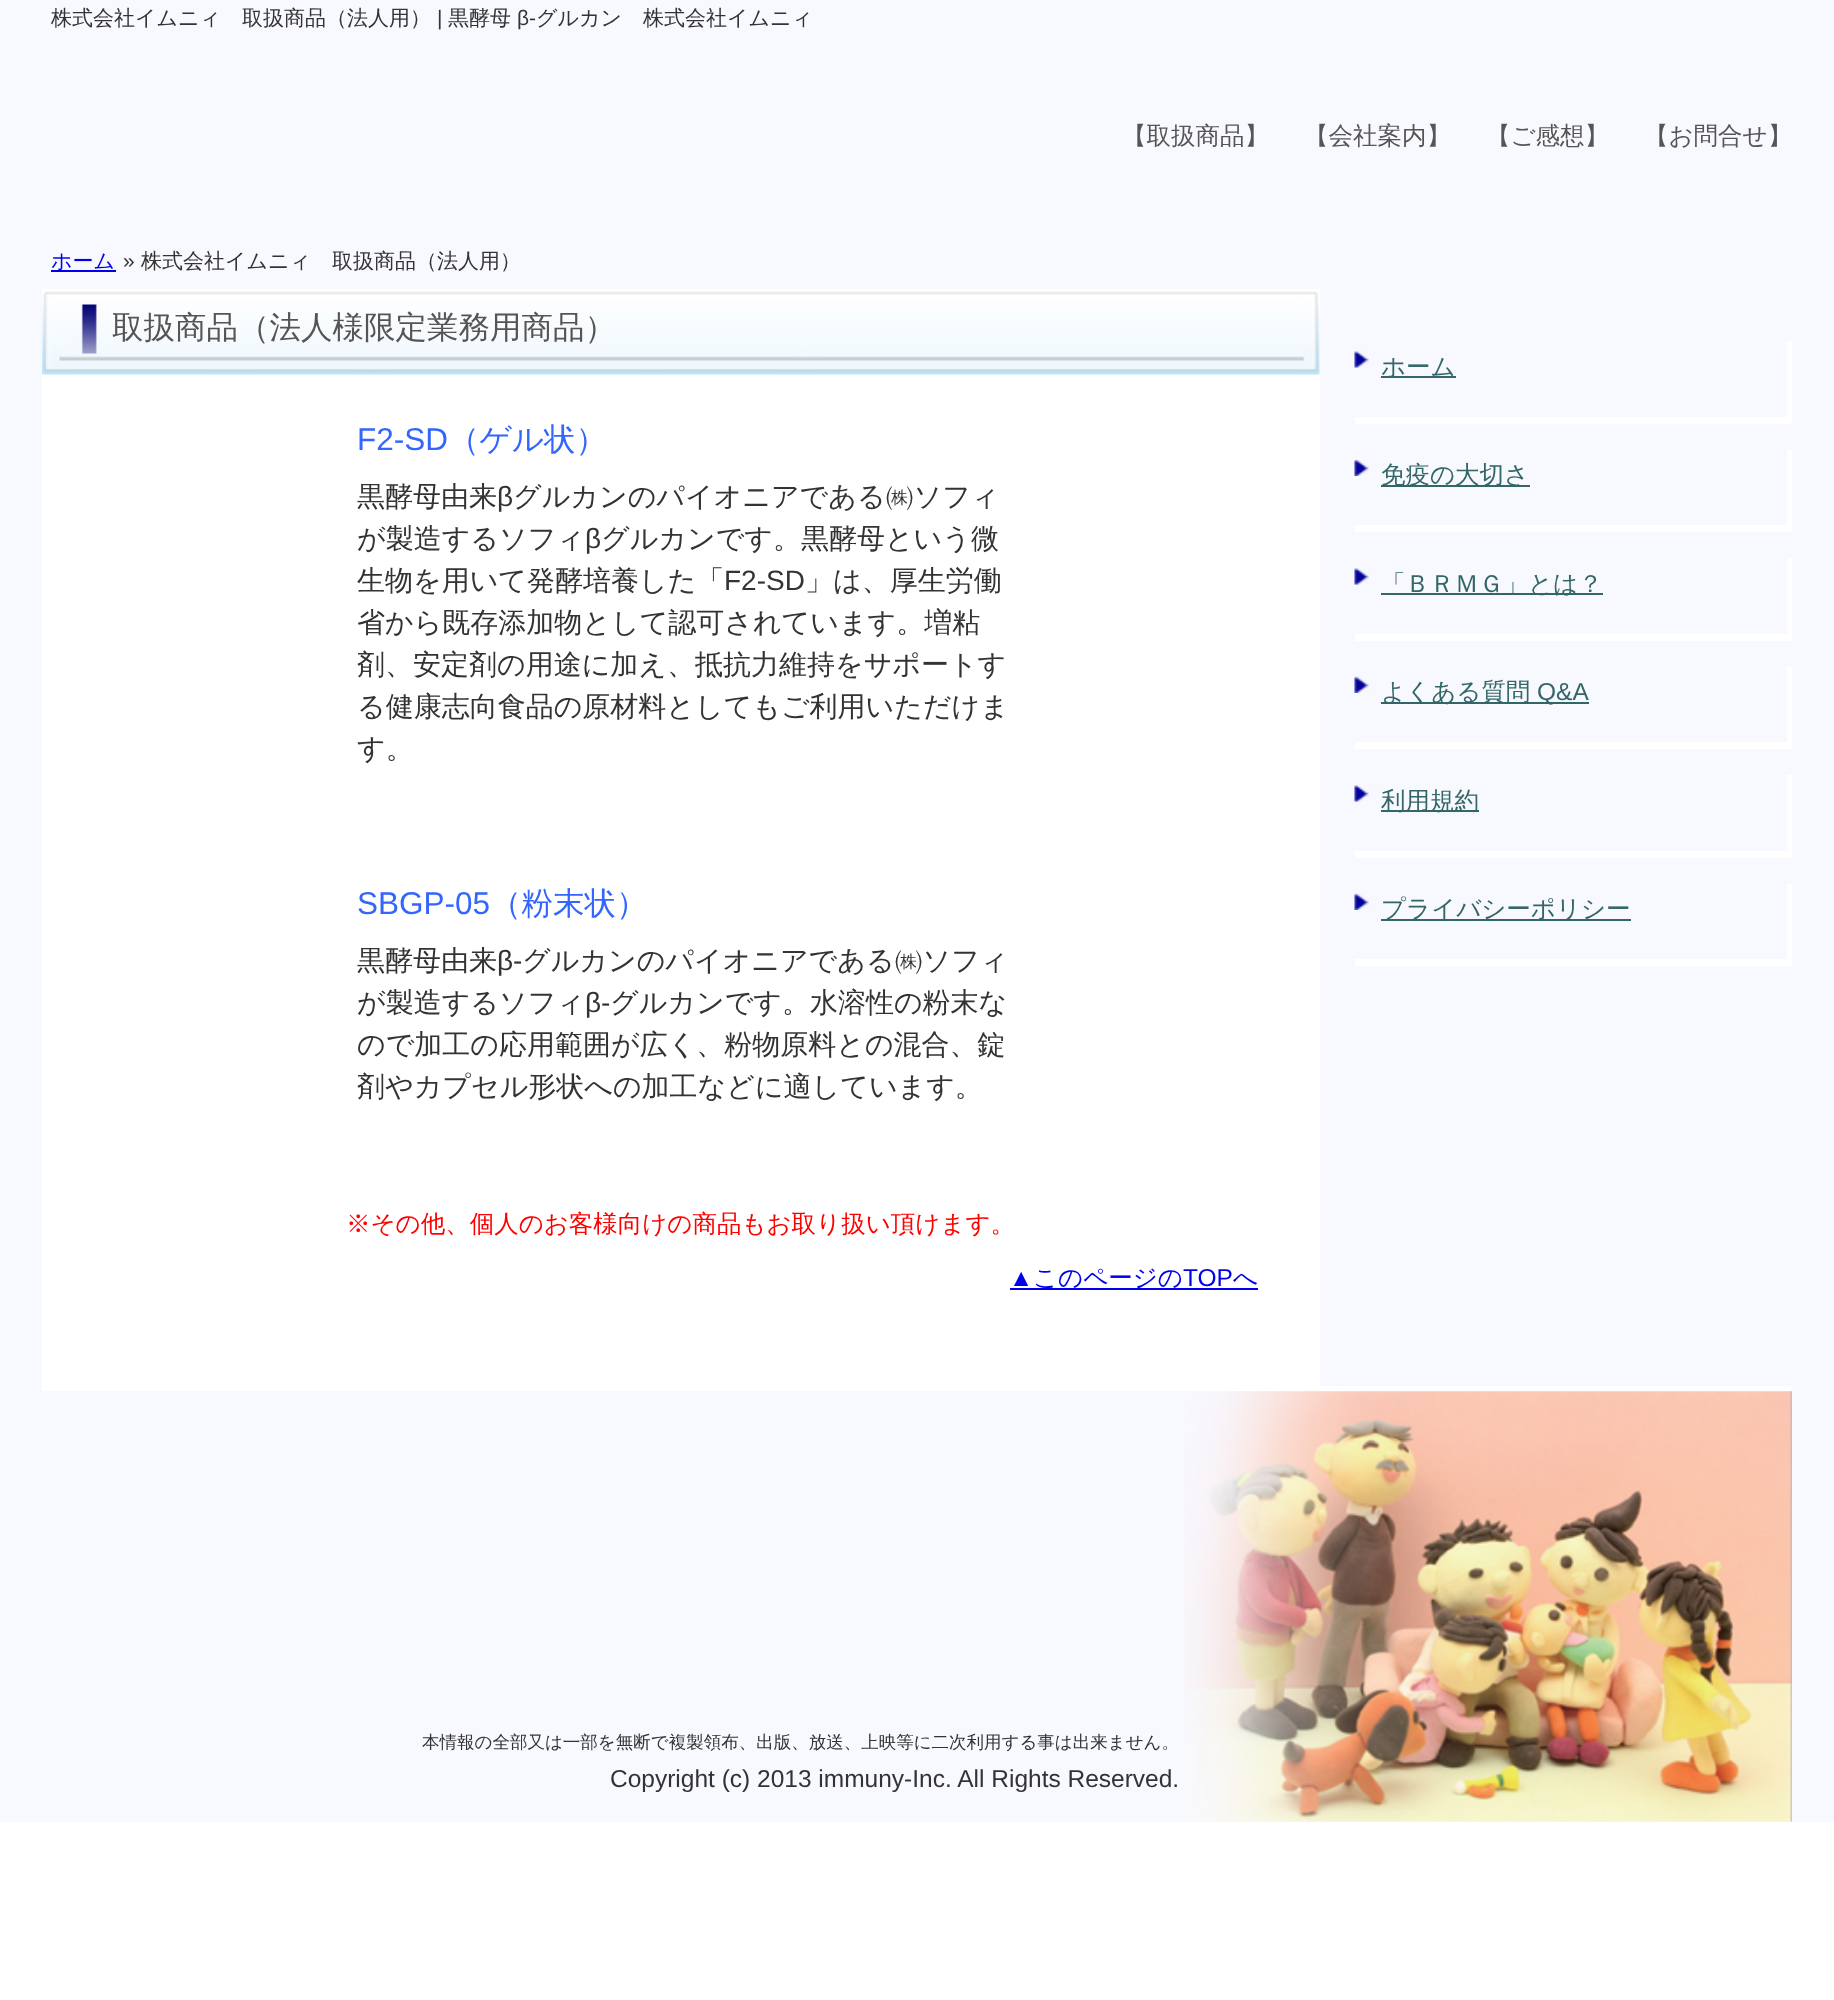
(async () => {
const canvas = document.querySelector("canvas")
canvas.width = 1834
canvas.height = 2000
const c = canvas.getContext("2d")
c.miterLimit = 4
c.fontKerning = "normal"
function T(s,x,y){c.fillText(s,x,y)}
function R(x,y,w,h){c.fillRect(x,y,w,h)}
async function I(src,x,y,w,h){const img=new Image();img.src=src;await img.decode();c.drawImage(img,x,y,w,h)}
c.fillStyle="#fff"
R(0,0,1834,2000)
c.fillStyle="#f8f8ff"
R(0,0,1834,1822)
c.font="500 21px WenQuanYi Zen Hei"
c.fillStyle="#333"
T("株式会社イムニィ　取扱商品（法人用）",51,25)
c.font="21px Liberation Sans"
T("|",437,25)
c.font="500 21px WenQuanYi Zen Hei"
T("黒酵母",448,25)
c.font="21px Liberation Sans"
T("β-",517,25)
c.font="500 21px WenQuanYi Zen Hei"
T("グルカン　株式会社イムニィ",536,25)
c.font="500 24.5px WenQuanYi Zen Hei"
c.fillStyle="#555"
T("【取扱商品】",1122,144)
T("【会社案内】",1304,144)
T("【ご感想】",1486,144)
T("【お問合せ】",1644,144)
c.fillStyle="#fff"
R(42,289,1278,1097)
c.fillStyle="#00e"
R(51,270,65,2)
c.font="500 21px WenQuanYi Zen Hei"
T("ホーム",51,268)
c.font="21px Liberation Sans"
c.fillStyle="#333"
T("»",123,268)
c.font="500 21px WenQuanYi Zen Hei"
T("株式会社イムニィ　取扱商品（法人用）",141,268)
await I("1.png",42,291,1278,84)
c.font="500 31.5px WenQuanYi Zen Hei"
c.fillStyle="#555"
T("取扱商品（法人様限定業務用商品）",112,338)
c.font="31.5px Liberation Sans"
c.fillStyle="#36f"
T("F2-SD",357,450)
c.font="500 31.5px WenQuanYi Zen Hei"
T("（ゲル状）",448,450)
c.font="500 28px WenQuanYi Zen Hei"
c.fillStyle="#333"
T("黒酵母由来",357,506)
c.font="28px Liberation Sans"
T("β",497,506)
c.font="500 28px WenQuanYi Zen Hei"
T("グルカンのパイオニアである㈱ソフィ",513,506)
T("が製造するソフィ",357,548)
c.font="28px Liberation Sans"
T("β",585,548)
c.font="500 28px WenQuanYi Zen Hei"
T("グルカンです。黒酵母という微",601,548)
T("生物を用いて発酵培養した「",357,590)
c.font="28px Liberation Sans"
T("F2-SD",724,590)
c.font="500 28px WenQuanYi Zen Hei"
T("」は、厚生労働",805,590)
T("省から既存添加物として認可されています。増粘",357,632)
T("剤、安定剤の用途に加え、抵抗力維持をサポートす",357,674)
T("る健康志向食品の原材料としてもご利用いただけま",357,716)
T("す。",357,758)
c.font="31.5px Liberation Sans"
c.fillStyle="#36f"
T("SBGP-05",357,914)
c.font="500 31.5px WenQuanYi Zen Hei"
T("（粉末状）",490,914)
c.font="500 28px WenQuanYi Zen Hei"
c.fillStyle="#333"
T("黒酵母由来",357,970)
c.font="28px Liberation Sans"
T("β-",497,970)
c.font="500 28px WenQuanYi Zen Hei"
T("グルカンのパイオニアである㈱ソフィ",522,970)
T("が製造するソフィ",357,1012)
c.font="28px Liberation Sans"
T("β-",585,1012)
c.font="500 28px WenQuanYi Zen Hei"
T("グルカンです。水溶性の粉末な",610,1012)
T("ので加工の応用範囲が広く、粉物原料との混合、錠",357,1054)
T("剤やカプセル形状への加工などに適しています。",357,1096)
c.font="500 24.5px WenQuanYi Zen Hei"
c.fillStyle="#f00"
T("※その他、個人のお客様向けの商品もお取り扱い頂けます。",346,1232)
c.font="24.5px Liberation Sans"
c.fillStyle="#00e"
T("▲",1009,1286)
R(1010,1288,248,2)
c.font="500 24.5px WenQuanYi Zen Hei"
T("このページの",1033,1286)
c.font="24.5px Liberation Sans"
T("TOP",1183,1286)
c.font="500 24.5px WenQuanYi Zen Hei"
T("へ",1233,1286)
await I("2.png",1354,351,15,17)
c.fillStyle="#fff"
R(1787,341,5,83)
R(1355,417,437,7)
c.fillStyle="#366"
R(1381,376,75,2)
T("ホーム",1381,375)
await I("3.png",1354,459,15,17)
c.fillStyle="#fff"
R(1787,450,5,82)
R(1355,525,437,7)
c.fillStyle="#366"
R(1381,485,149,2)
T("免疫の大切さ",1381,483)
await I("2.png",1354,568,15,17)
c.fillStyle="#fff"
R(1787,558,5,83)
R(1355,634,437,7)
c.fillStyle="#366"
R(1381,593,222,2)
T("「ＢＲＭＧ」とは？",1381,592)
await I("3.png",1354,676,15,17)
c.fillStyle="#fff"
R(1787,667,5,82)
R(1355,742,437,7)
c.fillStyle="#366"
R(1381,702,208,2)
T("よくある質問",1381,700)
c.font="24.5px Liberation Sans"
T("Q&A",1537,700)
await I("2.png",1354,785,15,17)
c.fillStyle="#fff"
R(1787,775,5,83)
R(1355,851,437,7)
c.fillStyle="#366"
R(1381,810,98,2)
c.font="500 24.5px WenQuanYi Zen Hei"
T("利用規約",1381,809)
await I("3.png",1354,893,15,17)
c.fillStyle="#fff"
R(1787,884,5,82)
R(1355,959,437,7)
c.fillStyle="#366"
R(1381,919,250,2)
T("プライバシーポリシー",1381,917)
await I("4.png",1184,1391,608,431)
c.fillStyle="#fff"
R(42,1386,1750,5)
c.font="500 17.5px WenQuanYi Zen Hei"
c.fillStyle="#333"
T("本情報の全部又は一部を無断で複製領布、出版、放送、上映等に二次利用する事は出来ません。",422,1748)
c.font="24.5px Liberation Sans"
T("Copyright (c) 2013 immuny-Inc. All Rights Reserved.",610,1787)
})()
